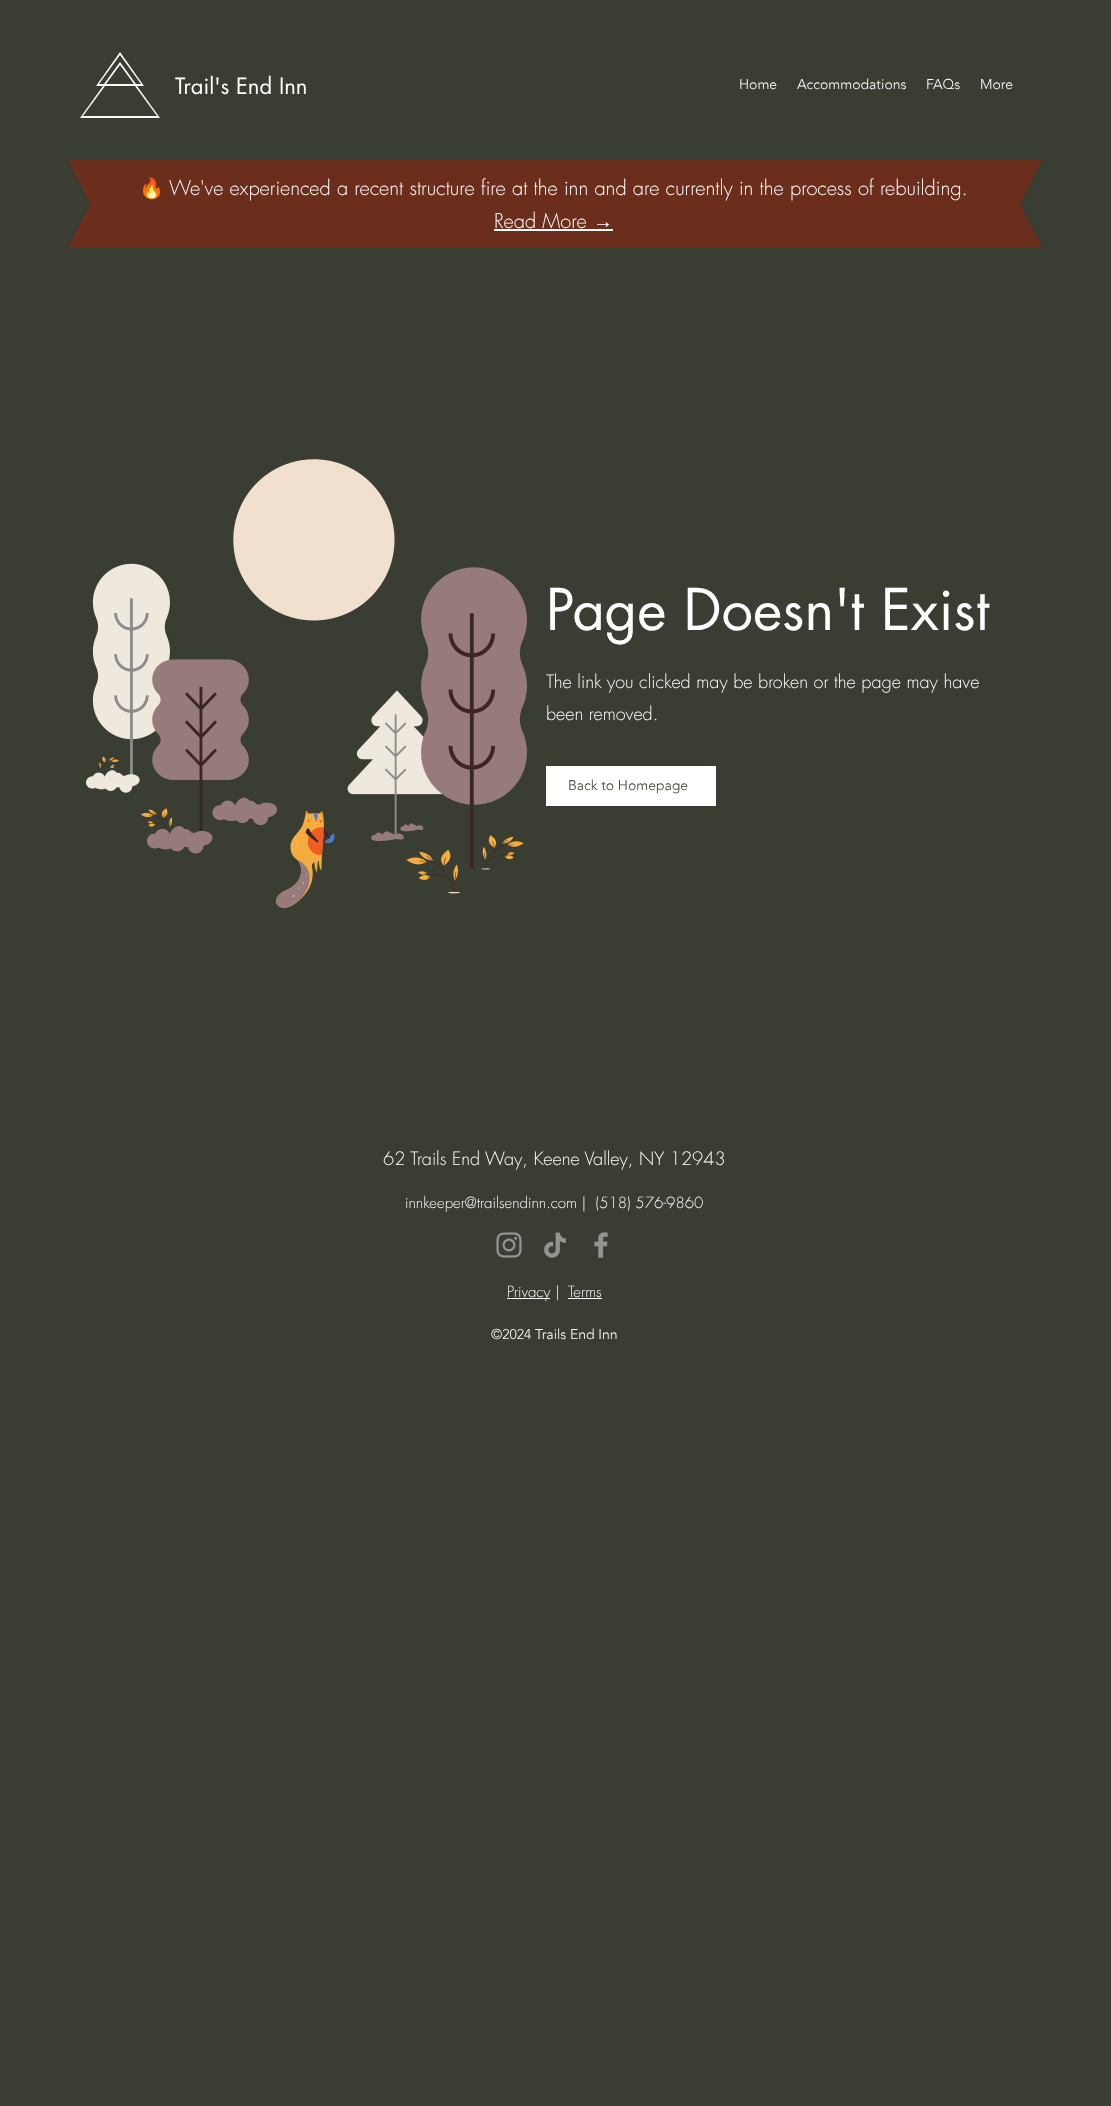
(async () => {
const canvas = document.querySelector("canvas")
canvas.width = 1111
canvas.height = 2106
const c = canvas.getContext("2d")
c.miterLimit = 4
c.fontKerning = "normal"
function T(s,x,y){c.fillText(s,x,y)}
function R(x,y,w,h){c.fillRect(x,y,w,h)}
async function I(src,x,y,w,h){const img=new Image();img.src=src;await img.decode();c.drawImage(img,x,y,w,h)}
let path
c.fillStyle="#393d32"
R(0,0,1111,2106)
c.fillStyle="#fff"
path = new Path2D("M160 118l-23-32h7l-24-34l-24 34h7l-23 32zm-61-34l21-29l21 29h-5l-16-22l-16 22zm35 0h-28l14-19zm1 2l22 30h-74l22-30z")
c.fill(path)
c.font="22px futura"
T("Trail's End Inn",175,94)
c.font="300 14px 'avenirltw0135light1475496'"
T("Home",739,89)
T("Accommodations",797,89)
T("FAQs",926,89)
T("More",980,89)
c.save()
c.beginPath()
c.rect(68,160,487,44)
c.clip()
c.fillStyle="#6b2e1d"
path = new Path2D("M68 160h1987l-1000 1000h-487z")
c.fill(path)
c.restore()
c.save()
c.beginPath()
c.rect(554,160,488,44)
c.clip()
c.fillStyle="#6b2e1d"
path = new Path2D("M-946 160h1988l-500 1000h-488z")
c.fill(path)
c.restore()
c.font="20px Noto Color Emoji"
T("🔥",139,195)
c.font="300 20px futura"
T("We've experienced a recent structure fire at the inn and are currently in the process of rebuilding.",169,195)
c.save()
c.beginPath()
c.rect(68,203,487,45)
c.clip()
c.fillStyle="#6b2e1d"
path = new Path2D("M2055 248h-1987l500-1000h487z")
c.fill(path)
c.restore()
c.save()
c.beginPath()
c.rect(554,203,488,45)
c.clip()
c.fillStyle="#6b2e1d"
path = new Path2D("M1042 248h-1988l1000-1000h488z")
c.fill(path)
c.restore()
T("Read More",494,228)
c.font="20px Liberation Sans"
T("→",593,228)
R(494,229,119,2)
await I("1.png",86,459,441,449)
c.font="56px futura"
T("Page Doesn't Exist",546,630)
c.font="300 18px futura"
T("The link you clicked may be broken or the page may have",546,688)
T("been removed.",546,720)
R(546,766,170,40)
c.font="300 14px 'avenirltw0135light1475496'"
c.fillStyle="#393d32"
T("Back to Homepage",568,790)
c.font="300 18px futura"
c.fillStyle="#fff"
T("62 Trails End Way, Keene Valley, NY 12943",383,1165)
c.font="300 15px futura"
T("innkeeper@trailsendinn.com |  (518) 576-9860",405,1208)
await I("2.png",496,1232,26,26)
await I("3.png",544,1232,22,26)
await I("4.png",594,1232,14,26)
R(507,1298,43,1)
T("Privacy |",507,1297)
T("Terms",568,1297)
R(568,1298,34,1)
c.font="300 14px 'avenirltw0135light1475496'"
T("©2024 Trails End Inn",491,1339)
})()
